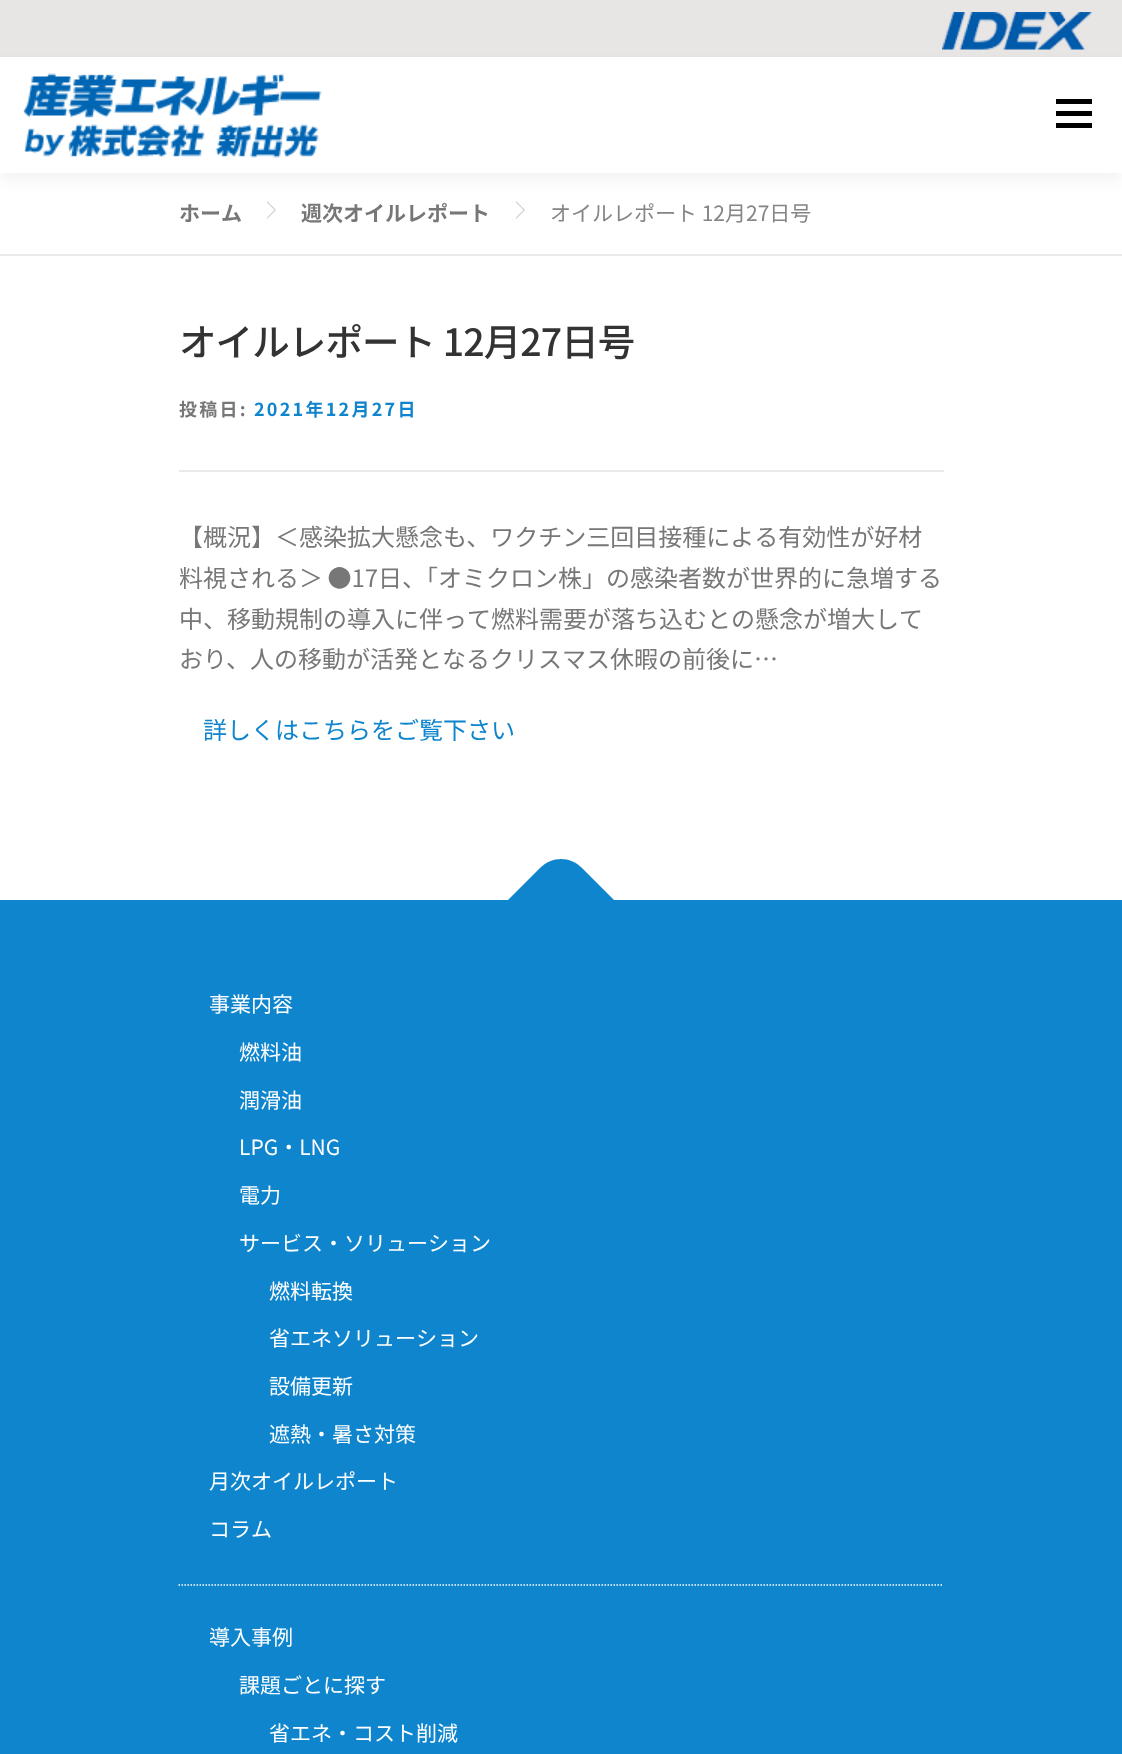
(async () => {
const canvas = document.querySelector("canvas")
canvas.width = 1122
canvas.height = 1754
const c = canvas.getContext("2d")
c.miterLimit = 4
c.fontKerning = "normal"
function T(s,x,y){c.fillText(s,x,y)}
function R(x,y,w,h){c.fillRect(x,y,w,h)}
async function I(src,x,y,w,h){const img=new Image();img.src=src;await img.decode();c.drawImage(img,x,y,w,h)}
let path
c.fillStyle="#fff"
R(0,0,1122,1754)
c.fillStyle="#e8e5e5"
R(0,0,1122,57)
await I("1.png",942,12,150,38)
c.fillStyle="#ccc"
path = new Path2D("M267 219v-18l9 9z")
c.fill(path)
c.fillStyle="#fff"
path = new Path2D("M267 217.5v-15l7.5 7.5z")
c.fill(path)
c.fillStyle="#ccc"
path = new Path2D("M516 219v-18l9 9z")
c.fill(path)
c.fillStyle="#fff"
path = new Path2D("M516 217.5v-15l7.5 7.5z")
c.fill(path)
c.fillStyle="#3232320f"
c.filter="blur(7.5px)"
c.beginPath()
c.rect(0,65,1122,115)
c.fill()
c.filter="none"
c.fillStyle="#fff"
R(0,59,1122,114)
await I("2.png",23,73,299,85)
c.fillStyle="#000"
R(1056,111,36,5)
R(1056,99,36,5)
R(1056,123,36,5)
c.fillStyle="#e9e9e9"
R(0,254,1122,2)
c.font="bold 21px Noto Sans JP"
c.fillStyle="#777"
T("ホーム",179,221)
T("週次オイルレポート",301,221)
c.font="21px Noto Sans JP"
c.fillStyle="#858585"
T("オイルレポート 12月27日号",550,221)
c.letterSpacing="-0.9px"
c.font="500 37.5px Noto Sans JP"
c.fillStyle="#333"
T("オイルレポート 12月27日号",179,356)
c.fillStyle="#e9e9e9"
R(179,470,765,2)
c.letterSpacing="2.25px"
c.font="bold 18px Noto Sans JP"
c.fillStyle="#777"
T("投稿日:",179,416)
c.fillStyle="#0e85cd"
T("2021年12月27日",254,416)
c.letterSpacing="0px"
c.font="24px Noto Sans JP"
c.fillStyle="#777"
T("【概況】＜感染拡大懸念も、ワクチン三回目接種による有効性が好材",179,546)
c.wordSpacing="-1px"
T("料視される＞ ●17日、「オミクロン株」の感染者数が世界的に急増する",179,587)
c.wordSpacing="0px"
T("中、移動規制の導入に伴って燃料需要が落ち込むとの懸念が増大して",179,628)
T("おり、人の移動が活発となるクリスマス休暇の前後に…",179,668)
c.fillStyle="#0e85cd"
T("詳しくはこちらをご覧下さい",203,739)
R(0,900,1122,854)
path = new Path2D("M508 900l32-32c12-12 30-12 42 0l32 32l-53 53z")
c.fill(path)
path = new Path2D("M178.5 1585h765")
c.strokeStyle="#fff"
c.lineWidth=1.5
c.setLineDash([1.5,1.5])
c.stroke(path)
c.font="21px Noto Sans JP"
c.fillStyle="#fff"
T("事業内容",209,1012)
T("燃料油",239,1060)
T("潤滑油",239,1108)
T("LPG・LNG",239,1155)
T("電力",239,1203)
T("サービス・ソリューション",239,1251)
T("燃料転換",269,1299)
T("省エネソリューション",269,1346)
T("設備更新",269,1394)
T("遮熱・暑さ対策",269,1442)
T("月次オイルレポート",209,1489)
T("コラム",209,1537)
T("導入事例",209,1645)
T("課題ごとに探す",239,1693)
T("省エネ・コスト削減",269,1741)
})()
